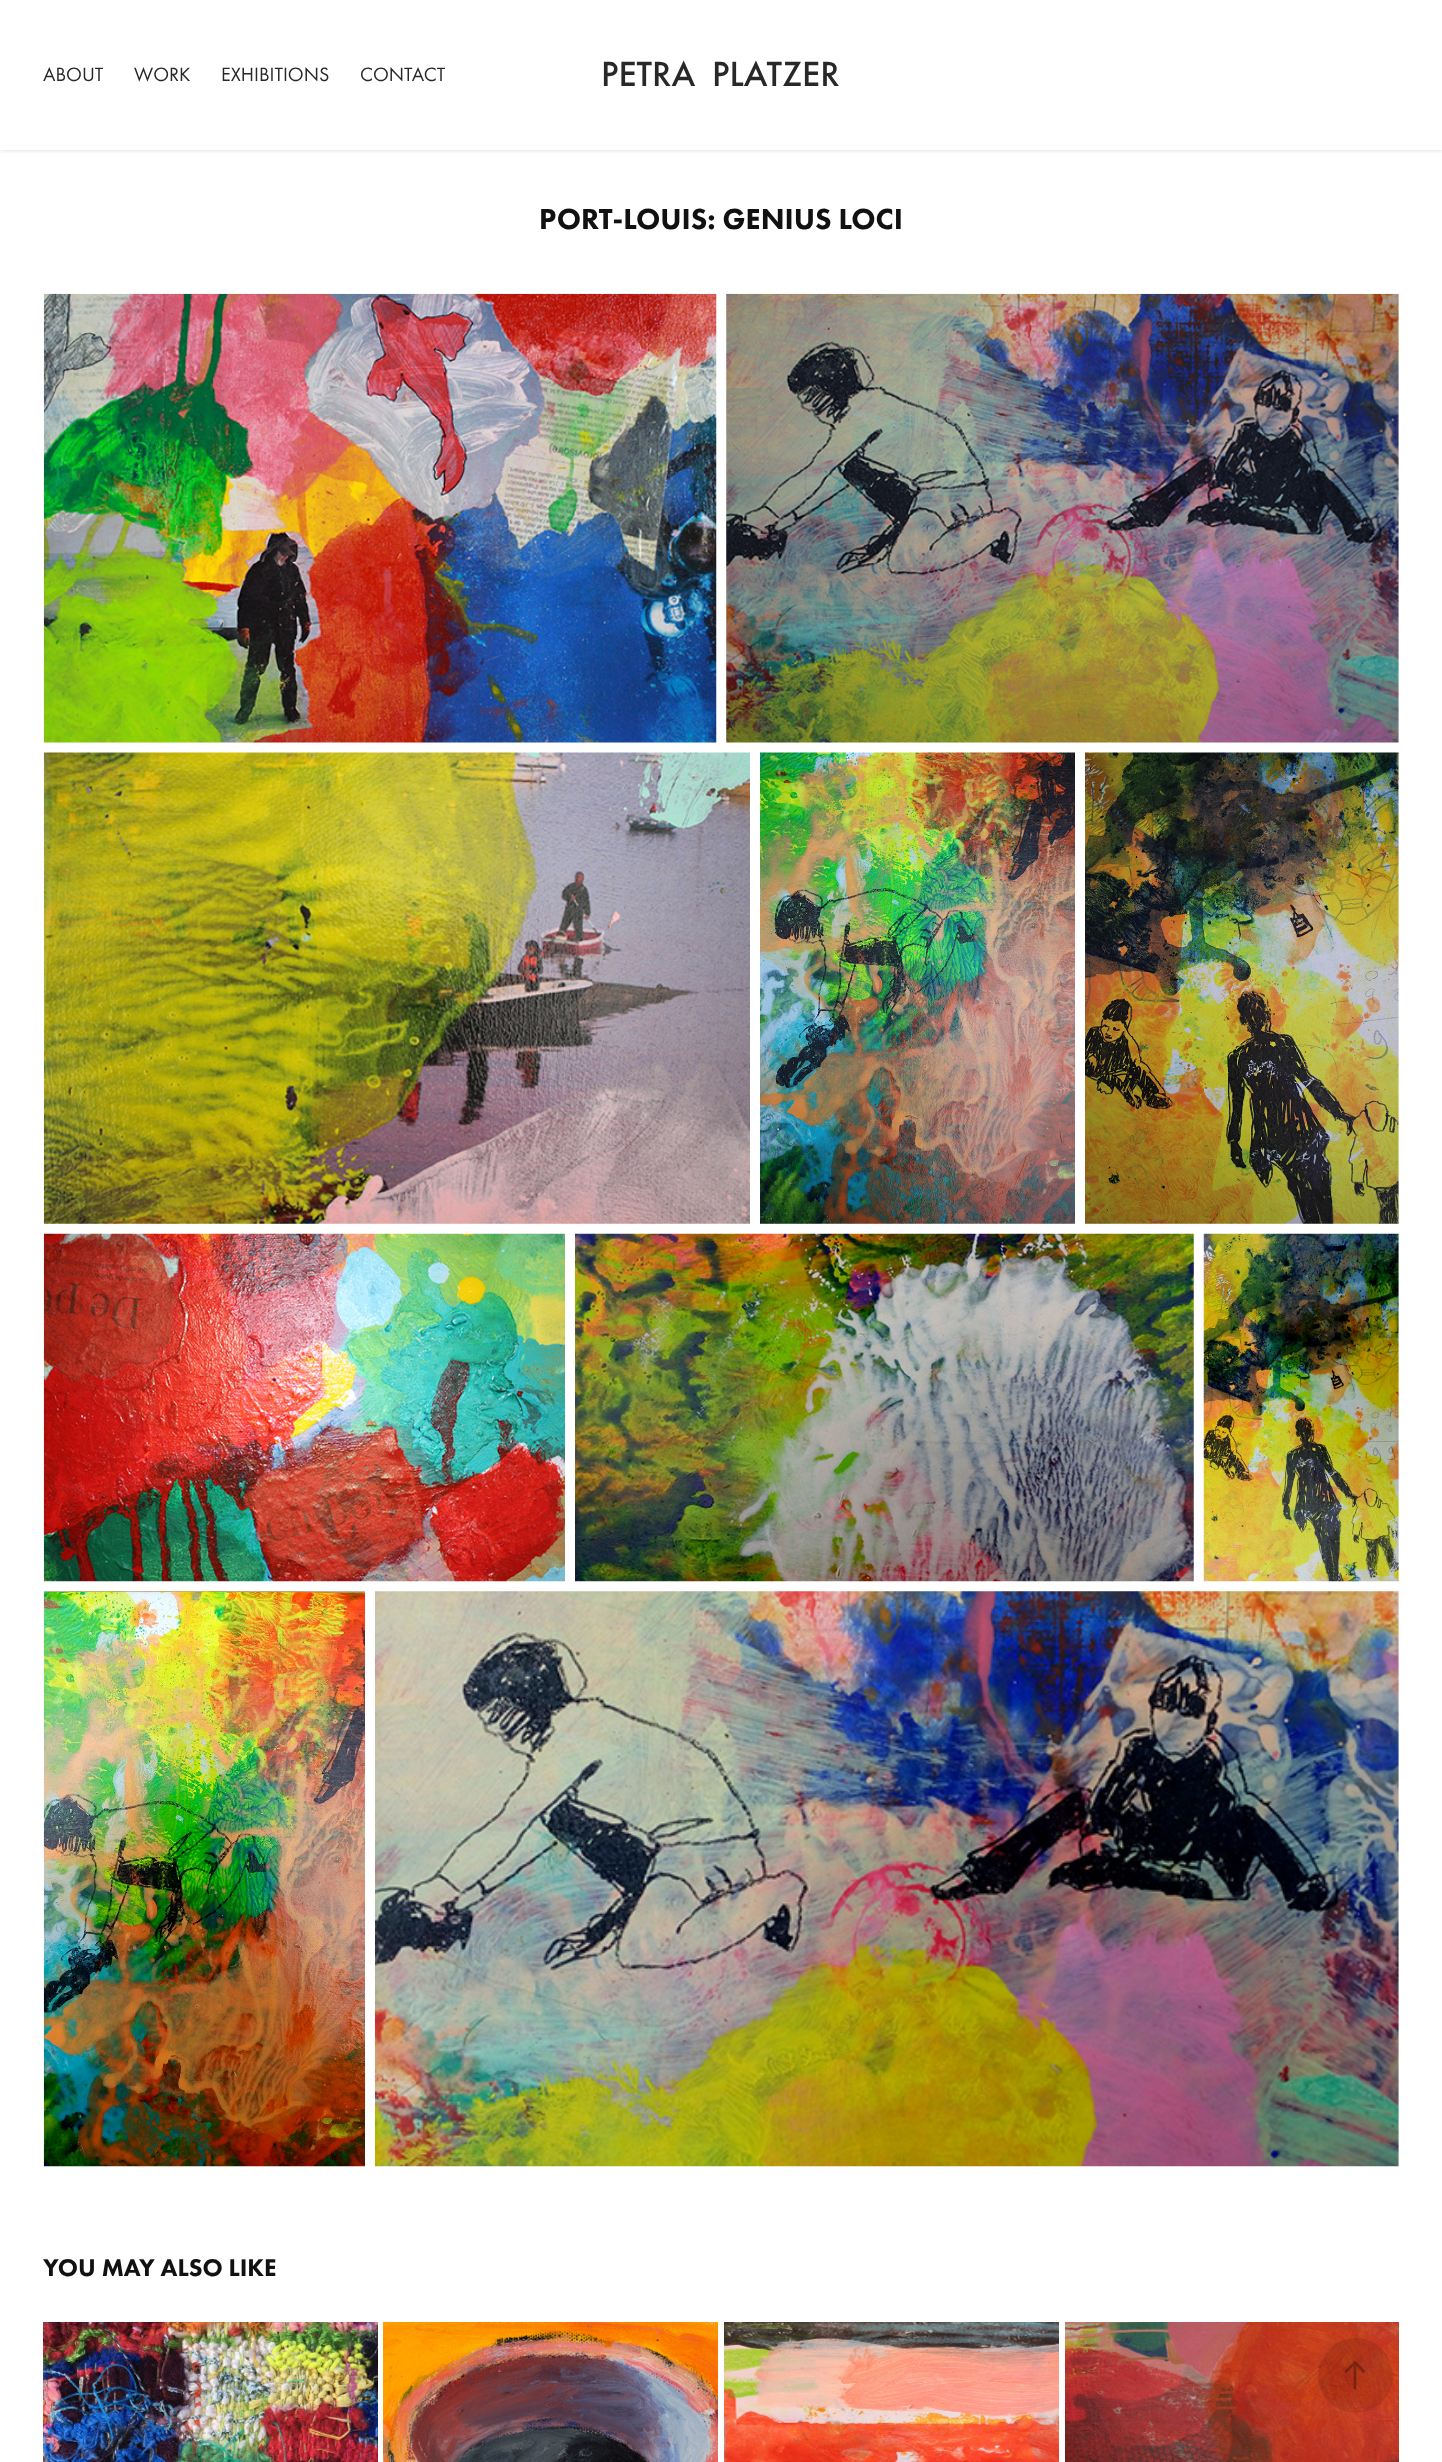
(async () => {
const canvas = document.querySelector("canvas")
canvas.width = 1442
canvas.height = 2462
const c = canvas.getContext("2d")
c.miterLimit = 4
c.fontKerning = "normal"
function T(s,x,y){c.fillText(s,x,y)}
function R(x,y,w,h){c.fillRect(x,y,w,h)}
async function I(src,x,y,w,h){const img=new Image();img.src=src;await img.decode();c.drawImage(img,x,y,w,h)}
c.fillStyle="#fff"
R(0,0,1442,2462)
c.save()
c.beginPath()
c.rect(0,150,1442,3)
c.clip()
c.fillStyle="#0000001a"
c.filter="blur(2px)"
c.beginPath()
c.rect(0,1,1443,150)
c.fill()
c.filter="none"
c.restore()
c.font="20px Futura PT"
c.fillStyle="#282828"
T("ABOUT",43,81)
T("WORK",134,81)
T("EXHIBITIONS",221,81)
T("CONTACT",360,81)
c.font="500 36.25px Futura PT"
T("PETRA  PLATZER",601,86)
c.font="900 30px Futura PT"
c.fillStyle="#111"
T("PORT-LOUIS: GENIUS LOCI",539,229)
await I("1.png",43,293,674,450)
await I("2.png",726,293,673,450)
await I("3.png",43,752,707,472)
await I("4.png",760,752,315,472)
await I("5.png",1085,752,314,472)
await I("6.png",43,1233,522,349)
await I("7.png",575,1233,619,349)
await I("8.png",1203,1233,196,349)
await I("9.png",43,1591,322,576)
await I("10.png",375,1591,1024,576)
c.font="900 25px Futura PT"
T("YOU MAY ALSO LIKE",43,2276)
await I("11.png",43,2322,335,140)
await I("12.png",383,2322,335,140)
await I("13.png",724,2322,335,140)
await I("14.png",1065,2322,334,140)
c.fillStyle="#0000001a"
c.beginPath()
c.arc(1355.5,2375.5,37.5,0,7)
c.fill()
await I("15.png",1344,2361,22,29)
})()
